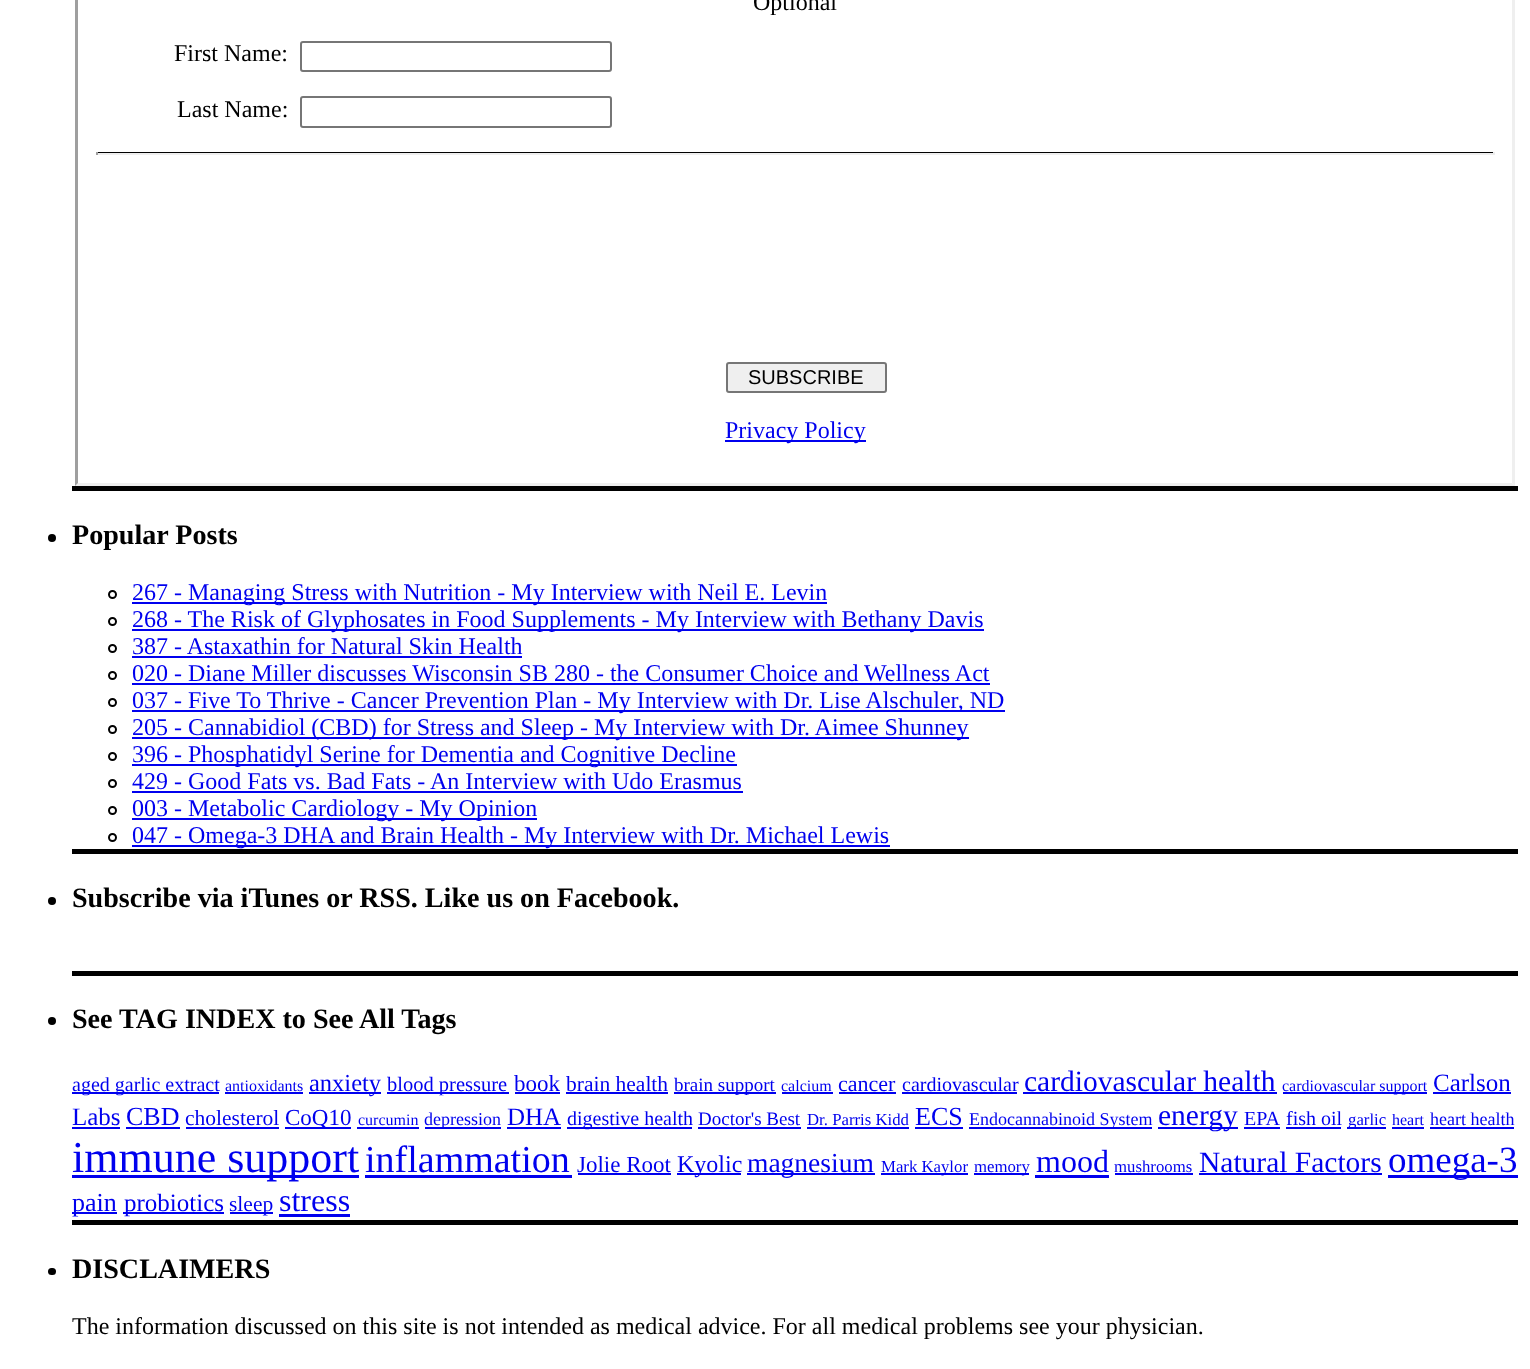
(async () => {
const canvas = document.querySelector("canvas")
canvas.width = 1530
canvas.height = 1369
const c = canvas.getContext("2d")
c.miterLimit = 4
c.fontKerning = "normal"
function T(s,x,y){c.fillText(s,x,y)}
function R(x,y,w,h){c.fillRect(x,y,w,h)}
function Q(x,y,w,h,r){c.beginPath();c.roundRect(x,y,w,h,r);c.fill()}
let path
c.fillStyle="#fff"
R(0,0,1530,1369)
c.fillStyle="#000"
R(72,486,1446,5)
c.fillStyle="#efefef"
path = new Path2D("M1515-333v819l-3-3v-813z")
c.fill(path)
path = new Path2D("M1515 486h-1440l3-3h1434z")
c.fill(path)
c.fillStyle="#9f9f9f"
path = new Path2D("M75 486v-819l3 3v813z")
c.fill(path)
c.font="24px Liberation Serif"
c.fillStyle="#000"
T("Optional",753,10)
T("First Name:",174,61)
c.beginPath()
c.roundRect(301,42,310,29,2)
c.strokeStyle="#767676"
c.lineWidth=2
c.stroke()
T("Last Name:",177,117)
c.beginPath()
c.roundRect(301,97,310,30,2)
c.stroke()
R(96,152,1398,1)
c.fillStyle="#eee"
R(1493,152,2,3)
R(96,153,1398,2)
c.fillStyle="#9f9f9f"
R(96,152,2,3)
c.fillStyle="#efefef"
c.beginPath()
c.roundRect(727,363,159,29,2)
c.fill()
c.stroke()
c.font="20px Liberation Sans"
c.fillStyle="#000"
T("SUBSCRIBE",748,384)
c.fillStyle="#00e"
R(725,440,141,2)
c.font="24px Liberation Serif"
T("Privacy Policy",725,438)
c.fillStyle="#000"
R(72,849,1446,5)
c.beginPath()
c.arc(52,538,4,0,7)
c.fill()
c.font="bold 28.1px Liberation Serif"
T("Popular Posts",72,544)
c.beginPath()
c.arc(112.5,594.5,3.5,0,7)
c.strokeStyle="#000"
c.stroke()
c.fillStyle="#00e"
R(132,602,695,2)
c.font="24px Liberation Serif"
T("267 - Managing Stress with Nutrition - My Interview with Neil E. Levin",132,600)
c.beginPath()
c.arc(112.5,621.5,3.5,0,7)
c.stroke()
R(132,629,852,2)
T("268 - The Risk of Glyphosates in Food Supplements - My Interview with Bethany Davis",132,627)
c.beginPath()
c.arc(112.5,648.5,3.5,0,7)
c.stroke()
T("387 - Astaxathin for Natural Skin Health",132,654)
R(132,656,390,2)
c.beginPath()
c.arc(112.5,675.5,3.5,0,7)
c.stroke()
T("020 - Diane Miller discusses Wisconsin SB 280 - the Consumer Choice and Wellness Act",132,681)
R(132,683,858,2)
c.beginPath()
c.arc(112.5,702.5,3.5,0,7)
c.stroke()
R(132,710,873,2)
T("037 - Five To Thrive - Cancer Prevention Plan - My Interview with Dr. Lise Alschuler, ND",132,708)
c.beginPath()
c.arc(112.5,729.5,3.5,0,7)
c.stroke()
R(132,737,837,2)
T("205 - Cannabidiol (CBD) for Stress and Sleep - My Interview with Dr. Aimee Shunney",132,735)
c.beginPath()
c.arc(112.5,756.5,3.5,0,7)
c.stroke()
R(132,764,605,2)
T("396 - Phosphatidyl Serine for Dementia and Cognitive Decline",132,762)
c.beginPath()
c.arc(112.5,783.5,3.5,0,7)
c.stroke()
T("429 - Good Fats vs. Bad Fats - An Interview with Udo Erasmus",132,789)
R(132,791,611,2)
c.beginPath()
c.arc(112.5,810.5,3.5,0,7)
c.stroke()
R(132,818,405,2)
T("003 - Metabolic Cardiology - My Opinion",132,816)
c.beginPath()
c.arc(112.5,837.5,3.5,0,7)
c.stroke()
R(132,845,758,2)
T("047 - Omega-3 DHA and Brain Health - My Interview with Dr. Michael Lewis",132,843)
c.fillStyle="#000"
R(72,971,1446,5)
c.beginPath()
c.arc(52,901,4,0,7)
c.fill()
c.font="bold 28.1px Liberation Serif"
T("Subscribe via iTunes or RSS. Like us on Facebook.",72,907)
R(72,1220,1446,5)
c.beginPath()
c.arc(52,1021,4,0,7)
c.fill()
T("See TAG INDEX to See All Tags",72,1028)
c.fillStyle="#00e"
R(72,1092,147,2)
c.font="20px Liberation Serif"
T("aged garlic extract",72,1091)
c.font="16px Liberation Serif"
T("antioxidants",225,1091)
R(225,1092,78,2)
R(309,1092,72,2)
c.font="24.5px Liberation Serif"
T("anxiety",309,1091)
R(387,1092,122,2)
c.font="20.5px Liberation Serif"
T("blood pressure",387,1091)
c.font="23px Liberation Serif"
T("book",514,1091)
R(515,1092,45,2)
c.font="21.5px Liberation Serif"
T("brain health",566,1091)
R(566,1092,102,2)
R(674,1092,102,2)
c.font="19px Liberation Serif"
T("brain support",674,1091)
c.font="16px Liberation Serif"
T("calcium",781,1091)
R(782,1092,51,2)
c.font="22px Liberation Serif"
T("cancer",838,1091)
R(839,1092,57,2)
c.font="20px Liberation Serif"
T("cardiovascular",902,1091)
R(902,1092,115,2)
c.font="29.5px Liberation Serif"
T("cardiovascular health",1024,1091)
R(1023,1092,254,2)
R(1283,1092,144,2)
c.font="16px Liberation Serif"
T("cardiovascular support",1282,1091)
c.font="25px Liberation Serif"
T("Carlson",1433,1091)
R(1433,1092,78,2)
T("Labs",72,1125)
R(72,1127,48,2)
c.font="26px Liberation Serif"
T("CBD",126,1125)
R(126,1127,54,2)
c.font="21.5px Liberation Serif"
T("cholesterol",185,1125)
R(186,1127,93,2)
R(285,1127,66,2)
c.font="23px Liberation Serif"
T("CoQ10",285,1125)
c.font="16px Liberation Serif"
T("curcumin",358,1125)
R(357,1127,62,2)
R(425,1127,76,2)
c.font="18px Liberation Serif"
T("depression",424,1125)
c.font="25px Liberation Serif"
T("DHA",507,1125)
R(507,1127,54,2)
R(567,1127,125,2)
c.font="20px Liberation Serif"
T("digestive health",567,1125)
c.font="19px Liberation Serif"
T("Doctor's Best",698,1125)
R(698,1127,103,2)
c.font="16.75px Liberation Serif"
T("Dr. Parris Kidd",807,1125)
R(807,1127,102,2)
c.font="26px Liberation Serif"
T("ECS",915,1125)
R(915,1127,48,2)
R(969,1127,183,2)
c.font="18px Liberation Serif"
T("Endocannabinoid System",969,1125)
R(1158,1127,80,2)
c.font="29.5px Liberation Serif"
T("energy",1158,1125)
c.font="20px Liberation Serif"
T("EPA",1244,1125)
R(1244,1127,36,2)
T("fish oil",1286,1125)
R(1286,1127,55,2)
R(1347,1127,39,2)
c.font="16.75px Liberation Serif"
T("garlic",1348,1125)
c.font="16px Liberation Serif"
T("heart",1392,1125)
R(1392,1127,32,2)
c.font="18px Liberation Serif"
T("heart health",1430,1125)
R(1430,1127,84,2)
R(72,1175,287,3)
c.font="44px Liberation Serif"
T("immune support",72,1172)
c.font="38px Liberation Serif"
T("inflammation",365,1172)
R(365,1175,207,3)
c.font="23px Liberation Serif"
T("Jolie Root",577,1172)
R(578,1173,93,2)
R(677,1173,64,2)
c.font="24px Liberation Serif"
T("Kyolic",677,1172)
R(747,1173,128,2)
c.font="27.5px Liberation Serif"
T("magnesium",747,1172)
R(881,1173,87,2)
c.font="16.75px Liberation Serif"
T("Mark Kaylor",881,1172)
R(974,1173,55,2)
T("memory",974,1172)
c.font="32px Liberation Serif"
T("mood",1036,1172)
R(1035,1175,74,3)
c.font="16.75px Liberation Serif"
T("mushrooms",1114,1172)
R(1115,1173,78,2)
c.font="29.5px Liberation Serif"
T("Natural Factors",1199,1172)
R(1199,1173,183,2)
R(1388,1175,130,3)
c.font="37px Liberation Serif"
T("omega-3",1388,1172)
R(72,1212,45,2)
c.font="26px Liberation Serif"
T("pain",72,1211)
R(123,1212,101,2)
c.font="25px Liberation Serif"
T("probiotics",124,1211)
R(230,1212,43,2)
c.font="21.5px Liberation Serif"
T("sleep",229,1211)
c.font="32px Liberation Serif"
T("stress",279,1211)
R(279,1214,71,3)
c.fillStyle="#000"
Q(48,1268,8,7,3.5)
c.font="bold 28.1px Liberation Serif"
T("DISCLAIMERS",72,1278)
c.font="24px Liberation Serif"
T("The information discussed on this site is not intended as medical advice. For all medical problems see your physician.",72,1334)
})()
